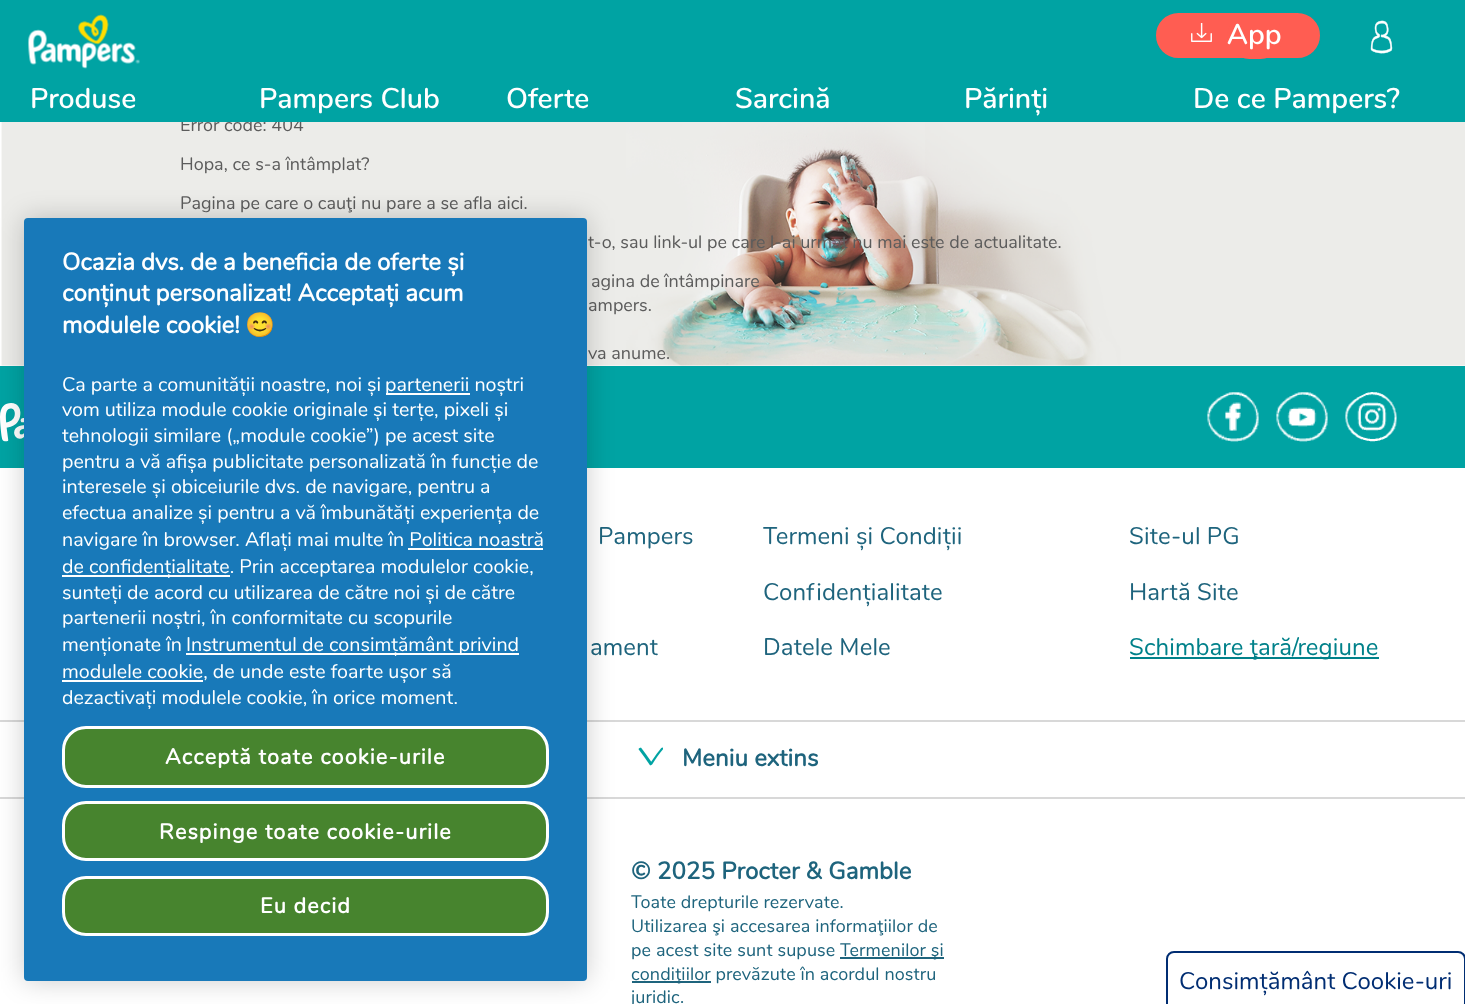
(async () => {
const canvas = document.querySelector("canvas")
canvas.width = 1465
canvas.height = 1004
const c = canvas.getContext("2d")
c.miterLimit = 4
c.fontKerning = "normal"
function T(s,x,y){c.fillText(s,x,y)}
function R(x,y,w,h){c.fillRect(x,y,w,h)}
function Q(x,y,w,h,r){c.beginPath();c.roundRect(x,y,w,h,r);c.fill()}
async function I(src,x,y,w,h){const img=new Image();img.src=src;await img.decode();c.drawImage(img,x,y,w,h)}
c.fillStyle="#fff"
R(0,0,1465,1004)
await I("4.png",1,122,1464,244)
c.font="18px Nunito"
c.fillStyle="#5c5c5c"
T("Error code: 404",180,131)
c.fillStyle="#00a3a3"
R(0,0,1465,122)
await I("1.png",28,14,112,55)
c.fillStyle="#ff5d52"
c.beginPath()
c.roundRect(1155,12,166,47,23.5)
c.fill()
c.strokeStyle="#00a3a3"
c.lineWidth=2
c.stroke()
await I("2.png",1191,23,21,19)
Q(1227,14,56,45,22.5)
c.font="600 28.5px Nunito"
c.fillStyle="#fff"
T("App",1227,44)
await I("3.png",1370,20,23,34)
T("Produse",30,108)
T("Pampers Club",259,108)
T("Oferte",506,108)
T("Sarcină",735,108)
T("Părinți",964,108)
T("De ce Pampers?",1193,108)
c.font="18px Nunito"
c.fillStyle="#5c5c5c"
T("Hopa, ce s-a întâmplat?",180,170)
T("Pagina pe care o cauţi nu pare a se afla aici.",180,209)
T("t-o, sau link-ul pe care l-ai urmat nu mai este de actualitate.",588,248)
T("agina de întâmpinare",591,287)
T("ampers.",588,311)
T("va anume.",588,359)
c.fillStyle="#00a3a3"
R(0,366,1465,102)
await I("5.png",0,403,24,39)
await I("6.png",1207,392,52,50)
await I("7.png",1276,392,52,50)
await I("8.png",1345,392,52,50)
c.letterSpacing="0.1px"
c.font="24px Nunito"
c.fillStyle="#1e647d"
T("Pampers",598,544)
T("ament",590,655)
T("Termeni și Condiții",763,544)
T("Confidențialitate",763,600)
T("Datele Mele",763,655)
T("Site-ul PG",1129,544)
T("Hartă Site",1129,600)
c.fillStyle="#00818a"
R(1130,657,249,2)
T("Schimbare ţară/regiune",1129,655)
c.fillStyle="#d8d8d8"
R(0,720,1465,2)
R(0,797,1465,2)
await I("9.png",638,747,25,19)
c.font="bold 24px Nunito"
c.fillStyle="#1e647d"
T("Meniu extins",682,766)
T("© 2025 Procter & Gamble",631,879)
c.font="18px Nunito"
T("Toate drepturile rezervate.",631,908)
T("Utilizarea şi accesarea informaţiilor de",631,932)
T("pe acest site sunt supuse",631,956)
R(840,957,104,2)
T("Termenilor şi",840,956)
R(632,981,79,2)
T("condiţiilor prevăzute în acordul nostru",631,980)
T("juridic.",631,1003)
c.fillStyle="#00000033"
c.filter="blur(13.5px)"
c.beginPath()
c.roundRect(24,218,563,763,4)
c.fill()
c.filter="none"
c.fillStyle="#1879b9"
Q(24,218,563,763,4)
c.letterSpacing="0px"
c.font="bold 24px Nunito"
c.fillStyle="#fff"
T("Ocazia dvs. de a beneficia de oferte și",62,270)
T("conținut personalizat! Acceptați acum",62,301)
T("modulele cookie!",62,333)
c.font="bold 24px Noto Color Emoji"
T("😊",245,333)
c.font="19.7px Nunito"
T("Ca parte a comunității noastre, noi și",62,391)
R(386,393,84,2)
T("partenerii noștri",385,391)
T("vom utiliza module cookie originale și terțe, pixeli și",62,416)
T("tehnologii similare („module cookie”) pe acest site",62,442)
T("pentru a vă afișa publicitate personalizată în funcție de",62,468)
T("interesele și obiceiurile dvs. de navigare, pentru a",62,493)
T("efectua analize și pentru a vă îmbunătăți experiența de",62,519)
T("navigare în browser. Aflați mai multe în Politica noastră",62,546)
R(62,575,168,2)
T("de confidențialitate. Prin acceptarea modulelor cookie,",62,573)
R(408,548,135,2)
T("sunteți de acord cu utilizarea de către noi și de către",62,599)
T("partenerii noștri, în conformitate cu scopurile",62,624)
T("menționate în",62,651)
R(186,653,333,2)
T("Instrumentul de consimțământ privind",186,651)
R(62,680,141,2)
T("modulele cookie, de unde este foarte ușor să",62,678)
T("dezactivați modulele cookie, în orice moment.",62,704)
c.fillStyle="#47842e"
c.beginPath()
c.roundRect(63.5,727.5,484,59,22.5)
c.fill()
c.strokeStyle="#fff"
c.lineWidth=3
c.stroke()
c.letterSpacing="1.1px"
c.font="bold 21.6px Nunito"
c.fillStyle="#fff"
T("Acceptă toate cookie-urile",165,764)
c.fillStyle="#47842e"
c.beginPath()
c.roundRect(63.5,802.5,484,57,22.5)
c.fill()
c.stroke()
c.fillStyle="#fff"
T("Respinge toate cookie-urile",159,839)
c.fillStyle="#47842e"
c.beginPath()
c.roundRect(63.5,877.5,484,57,22.5)
c.fill()
c.stroke()
c.fillStyle="#fff"
T("Eu decid",260,913)
c.beginPath()
c.roundRect(1167,952,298,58,7)
c.strokeStyle="#002d72"
c.lineWidth=2
c.stroke()
c.letterSpacing="0px"
c.font="24px Nunito"
c.fillStyle="#002d72"
T("Consimțământ Cookie-uri",1179,989)
})()
